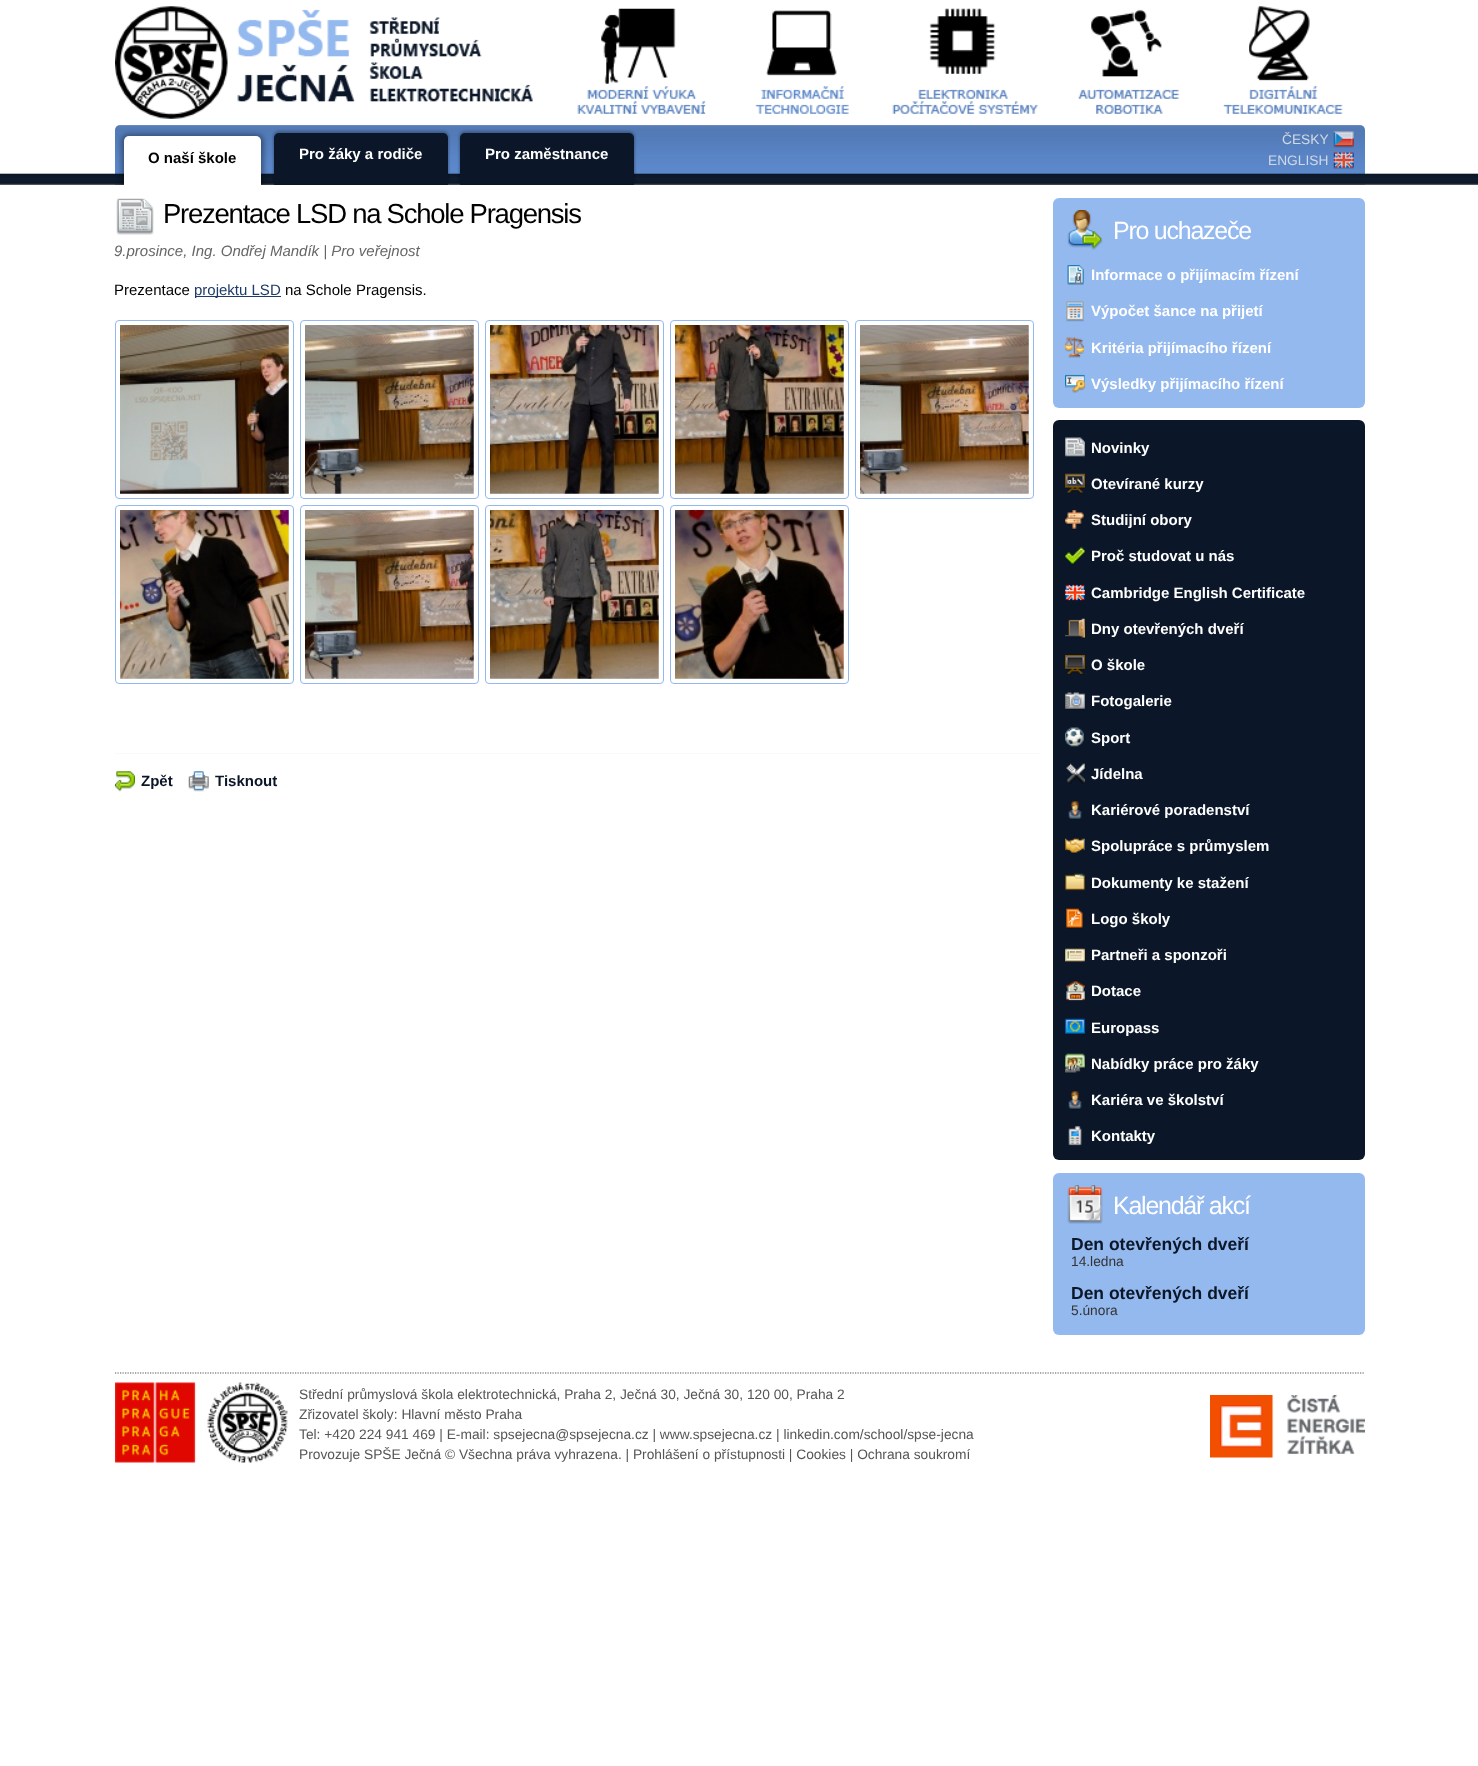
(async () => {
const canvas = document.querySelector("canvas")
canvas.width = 1478
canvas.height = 1766
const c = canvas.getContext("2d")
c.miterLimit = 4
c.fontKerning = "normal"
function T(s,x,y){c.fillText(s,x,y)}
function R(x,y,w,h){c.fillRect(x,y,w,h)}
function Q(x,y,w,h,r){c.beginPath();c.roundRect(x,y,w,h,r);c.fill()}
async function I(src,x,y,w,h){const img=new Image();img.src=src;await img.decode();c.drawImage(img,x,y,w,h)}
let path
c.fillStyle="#fff"
R(0,0,1478,1766)
await I("49.png",0,173,1478,12)
await I("1.png",115,125,1250,60)
await I("10.png",116,198,38,37)
c.save()
path = new Path2D("M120 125h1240c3 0 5 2 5 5v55h-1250v-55c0-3 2-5 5-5z")
c.clip(path)
c.fillStyle="#00000059"
c.filter="blur(2.5px)"
c.beginPath()
c.roundRect(121,134,143,57,8)
c.fill()
c.filter="none"
c.restore()
c.beginPath()
c.roundRect(124,136,137,49,[5,5,0,0])
c.fill()
c.font="bold 15px Liberation Sans"
c.fillStyle="#000"
T("O naší škole",148,163)
c.save()
path = new Path2D("M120 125h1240c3 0 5 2 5 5v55h-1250v-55c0-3 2-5 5-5z")
c.clip(path)
c.fillStyle="#00000040"
c.filter="blur(1px)"
c.beginPath()
c.roundRect(273,131,176,55,6)
c.fill()
c.filter="none"
c.restore()
c.fillStyle="#0b1728"
c.beginPath()
c.roundRect(274,133,174,52,[5,5,0,0])
c.fill()
c.fillStyle="#fff"
T("Pro žáky a rodiče",299,159)
c.save()
path = new Path2D("M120 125h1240c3 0 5 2 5 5v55h-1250v-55c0-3 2-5 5-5z")
c.clip(path)
c.fillStyle="#00000040"
c.filter="blur(1px)"
c.beginPath()
c.roundRect(459,131,176,55,6)
c.fill()
c.filter="none"
c.restore()
c.fillStyle="#0b1728"
c.beginPath()
c.roundRect(460,133,174,52,[5,5,0,0])
c.fill()
c.fillStyle="#fff"
T("Pro zaměstnance",485,159)
await I("2.png",115,6,418,113)
await I("3.png",577,8,129,106)
await I("4.png",755,10,94,104)
await I("5.png",892,8,146,106)
await I("6.png",1078,9,101,105)
await I("7.png",1223,6,120,108)
await I("8.png",1333,131,21,17)
c.font="13.75px Liberation Sans"
c.fillStyle="#d1d9e5"
T("ČESKY",1282,144)
await I("9.png",1333,152,21,17)
T("ENGLISH",1268,165)
c.letterSpacing="-1.25px"
c.font="27.5px Liberation Sans"
c.fillStyle="#000"
T("Prezentace LSD na Schole Pragensis",163,223)
c.letterSpacing="0px"
c.font="italic 15px Liberation Sans"
c.fillStyle="#666"
T("9.prosince, Ing. Ondřej Mandík | Pro veřejnost",114,256)
c.font="15px Liberation Sans"
c.fillStyle="#000"
T("Prezentace",114,295)
c.fillStyle="#1d3b68"
R(195,296,86,1)
T("projektu LSD",194,295)
c.fillStyle="#000"
T("na Schole Pragensis.",285,295)
c.beginPath()
c.roundRect(115.5,320.5,178,178,3.5)
c.strokeStyle="#94b9ef"
c.stroke()
await I("11.png",120,325,169,169)
c.beginPath()
c.roundRect(300.5,320.5,178,178,3.5)
c.stroke()
await I("12.png",305,325,169,169)
c.beginPath()
c.roundRect(485.5,320.5,178,178,3.5)
c.stroke()
await I("13.png",490,325,169,169)
c.beginPath()
c.roundRect(670.5,320.5,178,178,3.5)
c.stroke()
await I("14.png",675,325,169,169)
c.beginPath()
c.roundRect(855.5,320.5,178,178,3.5)
c.stroke()
await I("15.png",860,325,169,169)
c.beginPath()
c.roundRect(115.5,505.5,178,178,3.5)
c.stroke()
await I("16.png",120,510,169,169)
c.beginPath()
c.roundRect(300.5,505.5,178,178,3.5)
c.stroke()
await I("17.png",305,510,169,169)
c.beginPath()
c.roundRect(485.5,505.5,178,178,3.5)
c.stroke()
await I("18.png",490,510,169,169)
c.beginPath()
c.roundRect(670.5,505.5,178,178,3.5)
c.stroke()
await I("19.png",675,510,169,169)
c.fillStyle="#f9f9f9"
R(115,753,925,1)
await I("20.png",115,771,20,21)
c.font="bold 15px Liberation Sans"
c.fillStyle="#0b1728"
T("Zpět",141,786)
await I("21.png",188,771,21,21)
T("Tisknout",215,786)
c.fillStyle="#94b9ef"
Q(1053,198,312,210,6)
await I("22.png",1067,210,36,40)
c.letterSpacing="-1.25px"
c.font="25px Liberation Sans"
c.fillStyle="#fff"
T("Pro uchazeče",1113,239)
await I("23.png",1067,265,17,20)
c.letterSpacing="0px"
c.font="bold 15px Liberation Sans"
T("Informace o přijímacím řízení",1091,280)
await I("24.png",1066,301,18,21)
T("Výpočet šance na přijetí",1091,316)
await I("25.png",1065,337,19,21)
T("Kritéria přijímacího řízení",1091,353)
await I("26.png",1065,374,20,19)
T("Výsledky přijímacího řízení",1091,389)
c.fillStyle="#0b1728"
Q(1053,420,312,740,6)
await I("27.png",1065,437,20,20)
c.fillStyle="#fff"
T("Novinky",1091,453)
await I("28.png",1065,473,20,21)
T("Otevírané kurzy",1091,489)
await I("29.png",1065,510,19,20)
T("Studijní obory",1091,525)
await I("30.png",1065,547,20,18)
T("Proč studovat u nás",1091,561)
await I("31.png",1065,584,20,17)
T("Cambridge English Certificate",1091,598)
await I("32.png",1065,618,20,21)
T("Dny otevřených dveří",1091,634)
await I("33.png",1065,655,20,20)
T("O škole",1091,670)
await I("34.png",1065,692,20,18)
T("Fotogalerie",1091,706)
await I("35.png",1065,727,19,20)
T("Sport",1091,743)
await I("36.png",1066,763,19,21)
T("Jídelna",1091,779)
await I("37.png",1068,801,14,19)
T("Kariérové poradenství",1091,815)
await I("38.png",1065,838,20,16)
T("Spolupráce s průmyslem",1091,851)
await I("39.png",1065,873,20,18)
T("Dokumenty ke stažení",1091,888)
await I("40.png",1066,908,17,21)
T("Logo školy",1091,924)
await I("41.png",1065,948,20,14)
T("Partneři a sponzoři",1091,960)
await I("42.png",1066,981,19,20)
T("Dotace",1091,996)
await I("43.png",1065,1018,20,17)
T("Europass",1091,1033)
await I("44.png",1065,1053,20,21)
T("Nabídky práce pro žáky",1091,1069)
await I("37.png",1068,1091,14,19)
T("Kariéra ve školství",1091,1105)
await I("45.png",1068,1126,14,20)
T("Kontakty",1091,1141)
c.fillStyle="#94b9ef"
Q(1053,1173,312,162,6)
await I("46.png",1067,1185,36,39)
c.letterSpacing="-1.25px"
c.font="25px Liberation Sans"
c.fillStyle="#fff"
T("Kalendář akcí",1113,1214)
c.letterSpacing="0px"
c.font="bold 17.5px Liberation Sans"
c.fillStyle="#0b1728"
T("Den otevřených dveří",1071,1250)
c.font="13.75px Liberation Sans"
c.fillStyle="#333"
T("14.ledna",1071,1266)
c.font="bold 17.5px Liberation Sans"
c.fillStyle="#0b1728"
T("Den otevřených dveří",1071,1299)
c.font="13.75px Liberation Sans"
c.fillStyle="#333"
T("5.února",1071,1315)
await I("47.png",115,1382,173,81)
path = new Path2D("M115 1373h1250")
c.strokeStyle="#555"
c.lineWidth=1.2
c.setLineDash([1.25,1.25])
c.stroke(path)
c.fillStyle="#555"
T("Střední průmyslová škola elektrotechnická, Praha 2, Ječná 30, Ječná 30, 120 00, Praha 2",299,1399)
T("Zřizovatel školy: Hlavní město Praha",299,1419)
T("Tel: +420 224 941 469 | E-mail: spsejecna@spsejecna.cz | www.spsejecna.cz | linkedin.com/school/spse-jecna",299,1439)
T("Provozuje SPŠE Ječná © Všechna práva vyhrazena. | Prohlášení o přístupnosti | Cookies | Ochrana soukromí",299,1459)
await I("48.png",1210,1395,155,63)
})()
